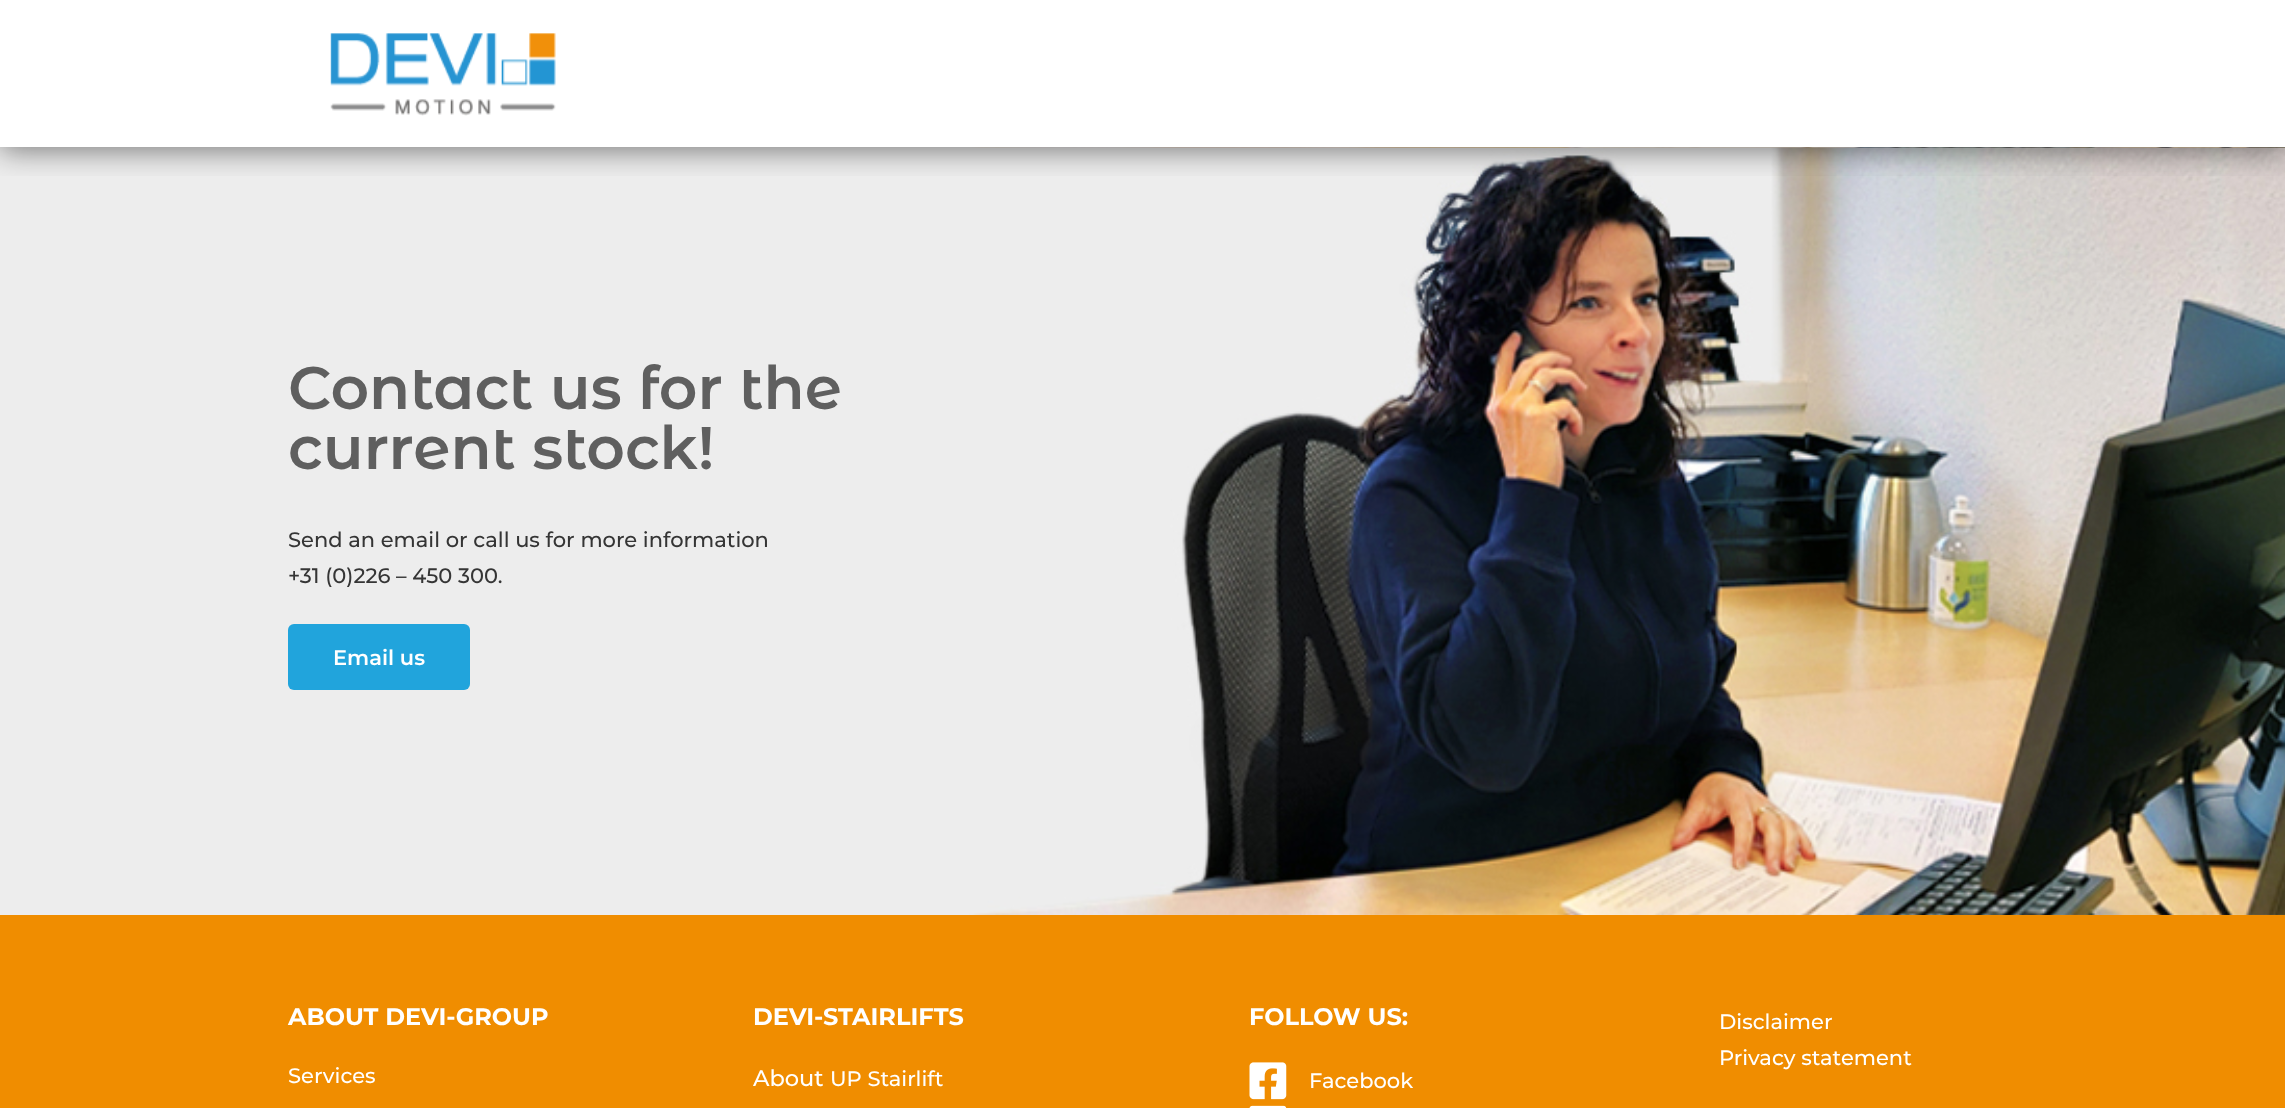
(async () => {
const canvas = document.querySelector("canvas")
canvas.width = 2285
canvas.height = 1108
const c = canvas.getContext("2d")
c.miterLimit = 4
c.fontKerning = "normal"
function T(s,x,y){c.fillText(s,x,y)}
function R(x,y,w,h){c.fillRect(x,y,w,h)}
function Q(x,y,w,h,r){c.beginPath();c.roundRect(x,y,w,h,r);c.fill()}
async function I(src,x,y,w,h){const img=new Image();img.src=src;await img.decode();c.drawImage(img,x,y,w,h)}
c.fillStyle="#fff"
R(0,0,2285,1108)
await I("2.png",0,147,2285,768)
c.save()
c.beginPath()
c.rect(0,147,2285,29)
c.clip()
c.fillStyle="#00000080"
c.filter="blur(15px)"
c.beginPath()
c.rect(0,3,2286,147)
c.fill()
c.filter="none"
c.restore()
await I("1.png",330,33,226,83)
c.font="600 60px Montserrat Alternates"
c.fillStyle="#5f5f5f"
T("Contact us for the",288,409)
T("current stock!",288,469)
c.font="500 21px Montserrat"
c.fillStyle="#353535"
T("Send an email or call us for more information",288,547)
T("+31 (0)226 – 450 300.",288,583)
c.fillStyle="#21a4dc"
Q(288,624,182,66,6)
c.font="600 21px Montserrat"
c.fillStyle="#fff"
T("Email us",333,665)
c.fillStyle="#f08d00"
R(0,915,2285,193)
c.font="bold 24px Montserrat"
c.fillStyle="#fff"
T("ABOUT DEVI-GROUP",288,1025)
c.font="500 21px Montserrat"
T("Services",288,1083)
c.font="bold 24px Montserrat"
T("DEVI-STAIRLIFTS",753,1025)
c.font="500 22.5px Montserrat"
T("About",753,1086)
c.font="500 21px Montserrat"
T("UP Stairlift",830,1086)
c.font="bold 24px Montserrat"
T("FOLLOW US:",1249,1025)
await I("3.png",1249,1062,38,38)
c.font="500 21px Montserrat"
T("Facebook",1309,1088)
await I("4.png",1249,1105,38,3)
T("Disclaimer",1719,1029)
T("Privacy statement",1719,1065)
})()
